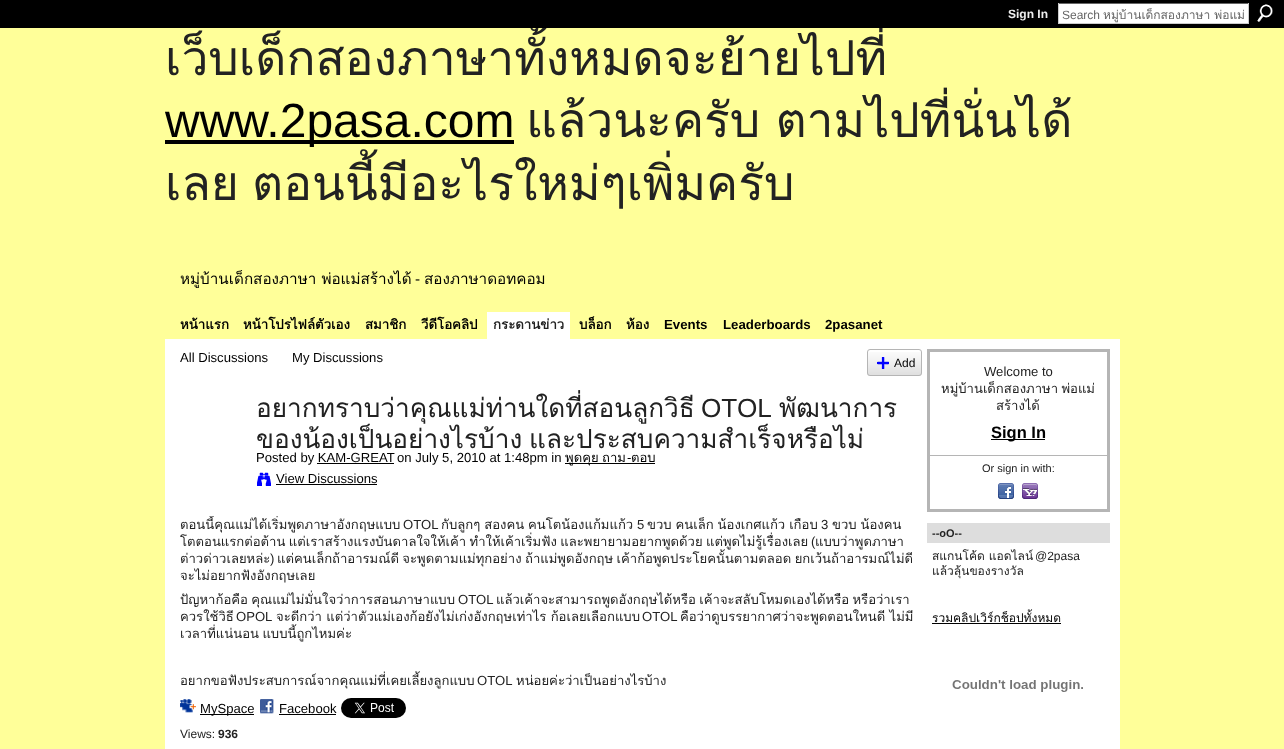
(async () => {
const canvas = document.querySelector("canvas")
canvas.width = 1284
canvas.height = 749
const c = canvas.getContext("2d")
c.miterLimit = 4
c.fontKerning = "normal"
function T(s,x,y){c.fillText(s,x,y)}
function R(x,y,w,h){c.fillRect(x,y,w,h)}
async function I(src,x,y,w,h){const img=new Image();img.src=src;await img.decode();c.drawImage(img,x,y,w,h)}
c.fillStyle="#ff9"
R(0,0,1284,749)
c.fillStyle="#000"
R(0,0,1284,28)
c.font="bold 12px Liberation Sans"
c.fillStyle="#eee"
T("Sign In",1008,18)
c.fillStyle="#fff"
R(1059,4,189,19)
c.fillStyle="#666"
R(1058,3,191,1)
c.fillStyle="#ccc"
R(1248,3,1,21)
R(1058,23,191,1)
R(1058,3,1,21)
c.font="12px Liberation Sans"
c.fillStyle="#666"
T("Search",1062,19)
c.font="12px Loma"
T("หมู่บ้านเด็กสองภาษา พ่อแม่",1103,19)
await I("1.png",1257,4,16,18)
c.save()
c.beginPath()
c.rect(165,28,955,192)
c.clip()
c.font="48px Loma"
c.fillStyle="#222"
T("เว็บเด็กสองภาษาทั้งหมดจะย้ายไปที่",165,75)
c.restore()
c.fillStyle="#000"
R(165,140,349,4)
c.save()
c.beginPath()
c.rect(165,28,955,192)
c.clip()
c.font="48px Liberation Sans"
T("www.2pasa.com",165,137)
c.restore()
c.wordSpacing="-1px"
c.font="48px Loma"
c.fillStyle="#222"
T("แล้วนะครับ ตามไปที่นั่นได้",526,137)
c.wordSpacing="-3px"
T("เลย ตอนนี้มีอะไรใหม่ๆเพิ่มครับ",165,200)
c.wordSpacing="0px"
c.font="15.25px Loma"
c.fillStyle="#000"
T("หมู่บ้านเด็กสองภาษา พ่อแม่สร้างได้",180,284)
c.font="15.25px Liberation Sans"
T("-",415,284)
c.font="15.25px Loma"
T("สองภาษาดอทคอม",424,284)
c.font="bold 13.25px Loma"
T("หน้าแรก",180,329)
T("หน้าโปรไฟล์ตัวเอง",243,329)
T("สมาชิก",365,329)
T("วีดีโอคลิป",421,329)
c.fillStyle="#fff"
R(487,312,83,27)
c.fillStyle="#222"
T("กระดานข่าว",493,329)
c.fillStyle="#000"
T("บล็อก",579,329)
T("ห้อง",626,329)
c.font="bold 13.25px Liberation Sans"
T("Events",664,329)
T("Leaderboards",723,329)
T("2pasanet",825,329)
c.fillStyle="#fff"
R(165,339,955,410)
c.font="13.1px Liberation Sans"
c.fillStyle="#000"
T("All Discussions",180,362)
T("My Discussions",292,362)
await I("2.png",867,352,55,24)
c.beginPath()
c.roundRect(867.5,349.5,54,26,2.5)
c.strokeStyle="#b5b5b5"
c.stroke()
await I("3.png",877,357,12,12)
c.font="12px Liberation Sans"
T("Add",894,367)
c.font="26.2px Loma"
c.fillStyle="#222"
T("อยากทราบว่าคุณแม่ท่านใดที่สอนลูกวิธี",256,417)
c.font="26.2px Liberation Sans"
T("OTOL",701,417)
c.font="26.2px Loma"
T("พัฒนาการ",779,417)
c.wordSpacing="-2px"
T("ของน้องเป็นอย่างไรบ้าง และประสบความสำเร็จหรือไม่",256,448)
c.wordSpacing="0px"
c.font="13.1px Liberation Sans"
c.fillStyle="#000"
T("Posted by KAM-GREAT",256,462)
T("on July 5, 2010 at 1:48pm in",397,462)
R(565,463,90,1)
c.wordSpacing="-1px"
c.font="13.1px Loma"
T("พูดคุย ถาม",565,462)
c.wordSpacing="0px"
c.font="13.1px Liberation Sans"
T("-",627,462)
c.font="13.1px Loma"
T("ตอบ",631,462)
R(317,463,77,1)
await I("4.png",257,472,14,14)
c.font="13.1px Liberation Sans"
T("View Discussions",276,483)
R(276,484,101,1)
c.save()
c.beginPath()
c.rect(180,516,737,173)
c.clip()
c.font="13.1px Loma"
c.fillStyle="#222"
T("ตอนนี้คุณแม่ได้เริ่มพูดภาษาอังกฤษแบบ",180,529)
c.restore()
c.fillStyle="#222"
T("OTOL",403,529)
c.wordSpacing="-0.5px"
c.font="13.1px Loma"
T("กับลูกๆ สองคน คนโตน้องแก้มแก้ว",441,529)
c.wordSpacing="0px"
c.font="13.1px Liberation Sans"
T("5",637,529)
c.wordSpacing="-0.5px"
c.font="13.1px Loma"
T("ขวบ คนเล็ก น้องเกศแก้ว เกือบ",647,529)
c.wordSpacing="0px"
c.font="13.1px Liberation Sans"
T("3",821,529)
c.wordSpacing="-0.5px"
c.font="13.1px Loma"
T("ขวบ น้องคน",832,529)
c.wordSpacing="-1px"
T("โตตอนแรกต่อต้าน แต่เราสร้างแรงบันดาลใจให้เค้า ทำให้เค้าเริ่มฟัง และพยายามอยากพูดด้วย แต่พูดไม่รู้เรื่องเลย",180,546)
c.wordSpacing="0px"
c.font="13.1px Liberation Sans"
T("(",811,546)
c.font="13.1px Loma"
T("แบบว่าพูดภาษา",815,546)
c.save()
c.beginPath()
c.rect(180,516,737,173)
c.clip()
T("ต่าวด่าวเลยหล่ะ",180,563)
c.restore()
c.font="13.1px Liberation Sans"
T(")",270,563)
c.wordSpacing="-1px"
c.font="13.1px Loma"
T("แต่คนเล็กถ้าอารมณ์ดี จะพูดตามแม่ทุกอย่าง ถ้าแม่พูดอังกฤษ เค้าก้อพูดประโยคนั้นตามตลอด ยกเว้นถ้าอารมณ์ไม่ดี",277,563)
c.wordSpacing="0px"
T("จะไม่อยากฟังอังกฤษเลย",180,580)
c.save()
c.beginPath()
c.rect(180,516,737,173)
c.clip()
c.wordSpacing="-1px"
T("ปัญหาก้อคือ คุณแม่ไม่มั่นใจว่าการสอนภาษาแบบ",180,604)
c.restore()
c.font="13.1px Liberation Sans"
T("OTOL",458,604)
c.wordSpacing="-1px"
c.font="13.1px Loma"
T("แล้วเค้าจะสามารถพูดอังกฤษได้หรือ เค้าจะสลับโหมดเองได้หรือ หรือว่าเรา",496,604)
c.wordSpacing="0px"
T("ควรใช้วิธี",180,621)
c.font="13.1px Liberation Sans"
T("OPOL",236,621)
c.font="13.1px Loma"
T("จะดีกว่า แต่ว่าตัวแม่เองก้อยังไม่เก่งอังกฤษเท่าไร ก้อเลยเลือกแบบ",276,621)
c.font="13.1px Liberation Sans"
T("OTOL",642,621)
c.font="13.1px Loma"
T("คือว่าดูบรรยากาศว่าจะพูดตอนใหนดี ไม่มี",680,621)
c.wordSpacing="-1px"
T("เวลาที่แน่นอน แบบนี้ถูกไหมค่ะ",180,638)
c.wordSpacing="0px"
T("อยากขอฟังประสบการณ์จากคุณแม่ที่เคยเลี้ยงลูกแบบ",180,685)
c.font="13.1px Liberation Sans"
T("OTOL",477,685)
c.font="13.1px Loma"
T("หน่อยค่ะว่าเป็นอย่างไรบ้าง",516,685)
await I("5.png",180,699,16,14)
c.fillStyle="#000"
R(200,714,54,1)
c.font="13.1px Liberation Sans"
T("MySpace",200,713)
await I("6.png",260,699,14,15)
T("Facebook",279,713)
R(279,714,57,1)
await I("7.png",341,698,65,20)
c.font="12px Liberation Sans"
c.fillStyle="#222"
T("Views:",180,738)
c.font="bold 12px Liberation Sans"
T("936",218,738)
c.lineWidth=3
c.strokeRect(928.5,350.5,180,160)
c.font="13.1px Liberation Sans"
T("Welcome to",984,376)
c.wordSpacing="-1px"
c.font="13.1px Loma"
T("หมู่บ้านเด็กสองภาษา พ่อแม่",941,393)
c.wordSpacing="0px"
T("สร้างได้",996,410)
c.fillStyle="#000"
R(991,439,54,1)
c.font="bold 16.5px Liberation Sans"
T("Sign In",991,438)
c.fillStyle="#b5b5b5"
R(930,455,177,1)
c.font="11px Liberation Sans"
c.fillStyle="#222"
T("Or sign in with:",982,472)
await I("8.png",998,483,16,16)
await I("9.png",1022,483,16,16)
c.fillStyle="#ddd"
R(927,523,183,20)
c.font="bold 11px Liberation Sans"
c.fillStyle="#222"
T("--oO--",932,537)
c.font="12px Loma"
T("สแกนโค้ด แอดไลน์",932,560)
c.font="12px Liberation Sans"
T("@2pasa",1035,560)
c.font="12px Loma"
T("แล้วลุ้นของรางวัล",932,575)
c.fillStyle="#000"
T("รวมคลิปเวิร์กช็อปทั้งหมด",932,622)
R(932,623,129,1)
await I("10.png",952,680,131,12)
})()
